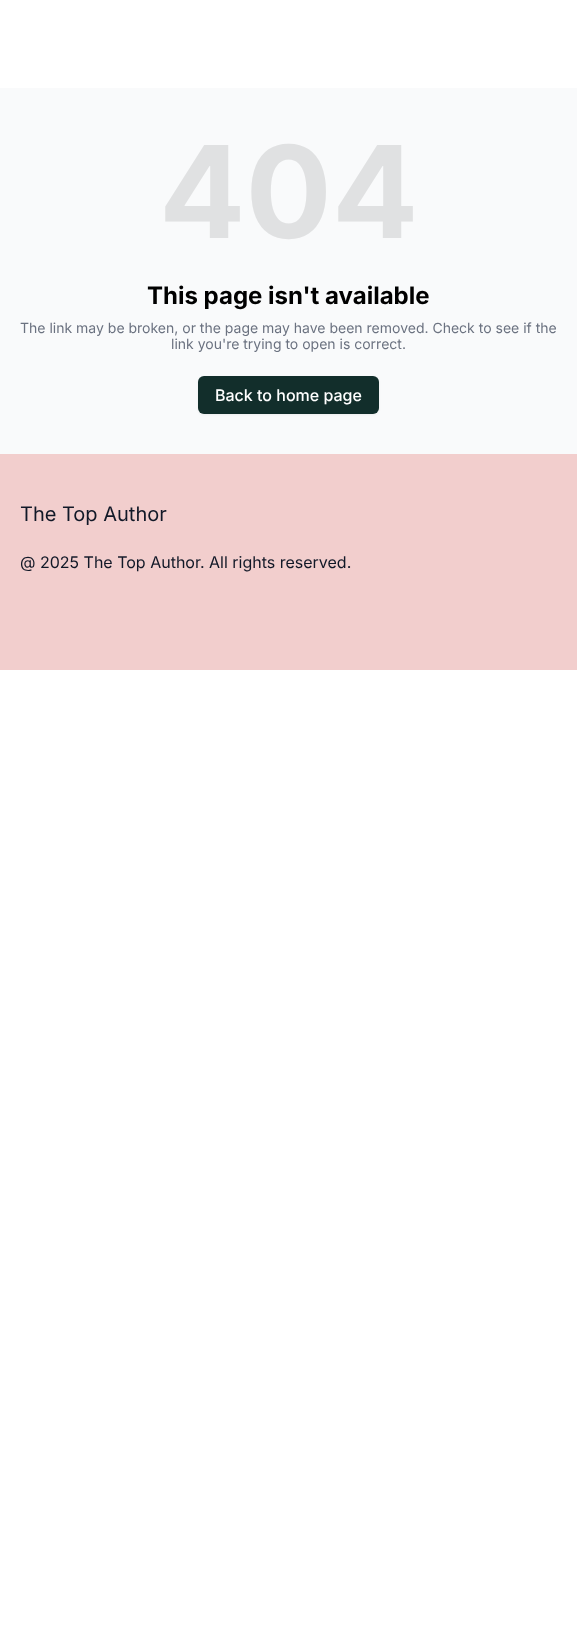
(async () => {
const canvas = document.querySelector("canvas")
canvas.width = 577
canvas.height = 1627
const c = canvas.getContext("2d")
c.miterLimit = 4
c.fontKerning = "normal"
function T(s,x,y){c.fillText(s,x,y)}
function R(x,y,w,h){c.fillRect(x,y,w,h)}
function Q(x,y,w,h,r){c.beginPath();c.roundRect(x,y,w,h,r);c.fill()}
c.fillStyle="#fff"
R(0,0,577,1627)
c.fillStyle="#f9fafb"
R(0,88,577,366)
c.font="bold 128px Inter"
c.fillStyle="#e0e1e2"
T("404",159,238)
c.font="bold 24px Inter"
c.fillStyle="#000"
T("This page isn't available",147,304)
c.font="14px Inter"
c.fillStyle="#6b7280"
T("The link may be broken, or the page may have been removed. Check to see if the",20,333)
T("link you're trying to open is correct.",171,349)
c.fillStyle="#0000000d"
c.filter="blur(1px)"
c.beginPath()
c.roundRect(198,377,181,38,6)
c.fill()
c.filter="none"
c.fillStyle="#122e2b"
Q(198,376,181,38,6)
c.font="500 16px Inter"
c.fillStyle="#fff"
T("Back to home page",215,401)
c.fillStyle="#f2cecd"
R(0,454,577,216)
c.font="20px Inter"
c.fillStyle="#111827"
T("The Top Author",20,521)
c.font="16px Inter"
T("@ 2025 The Top Author. All rights reserved.",20,568)
})()
